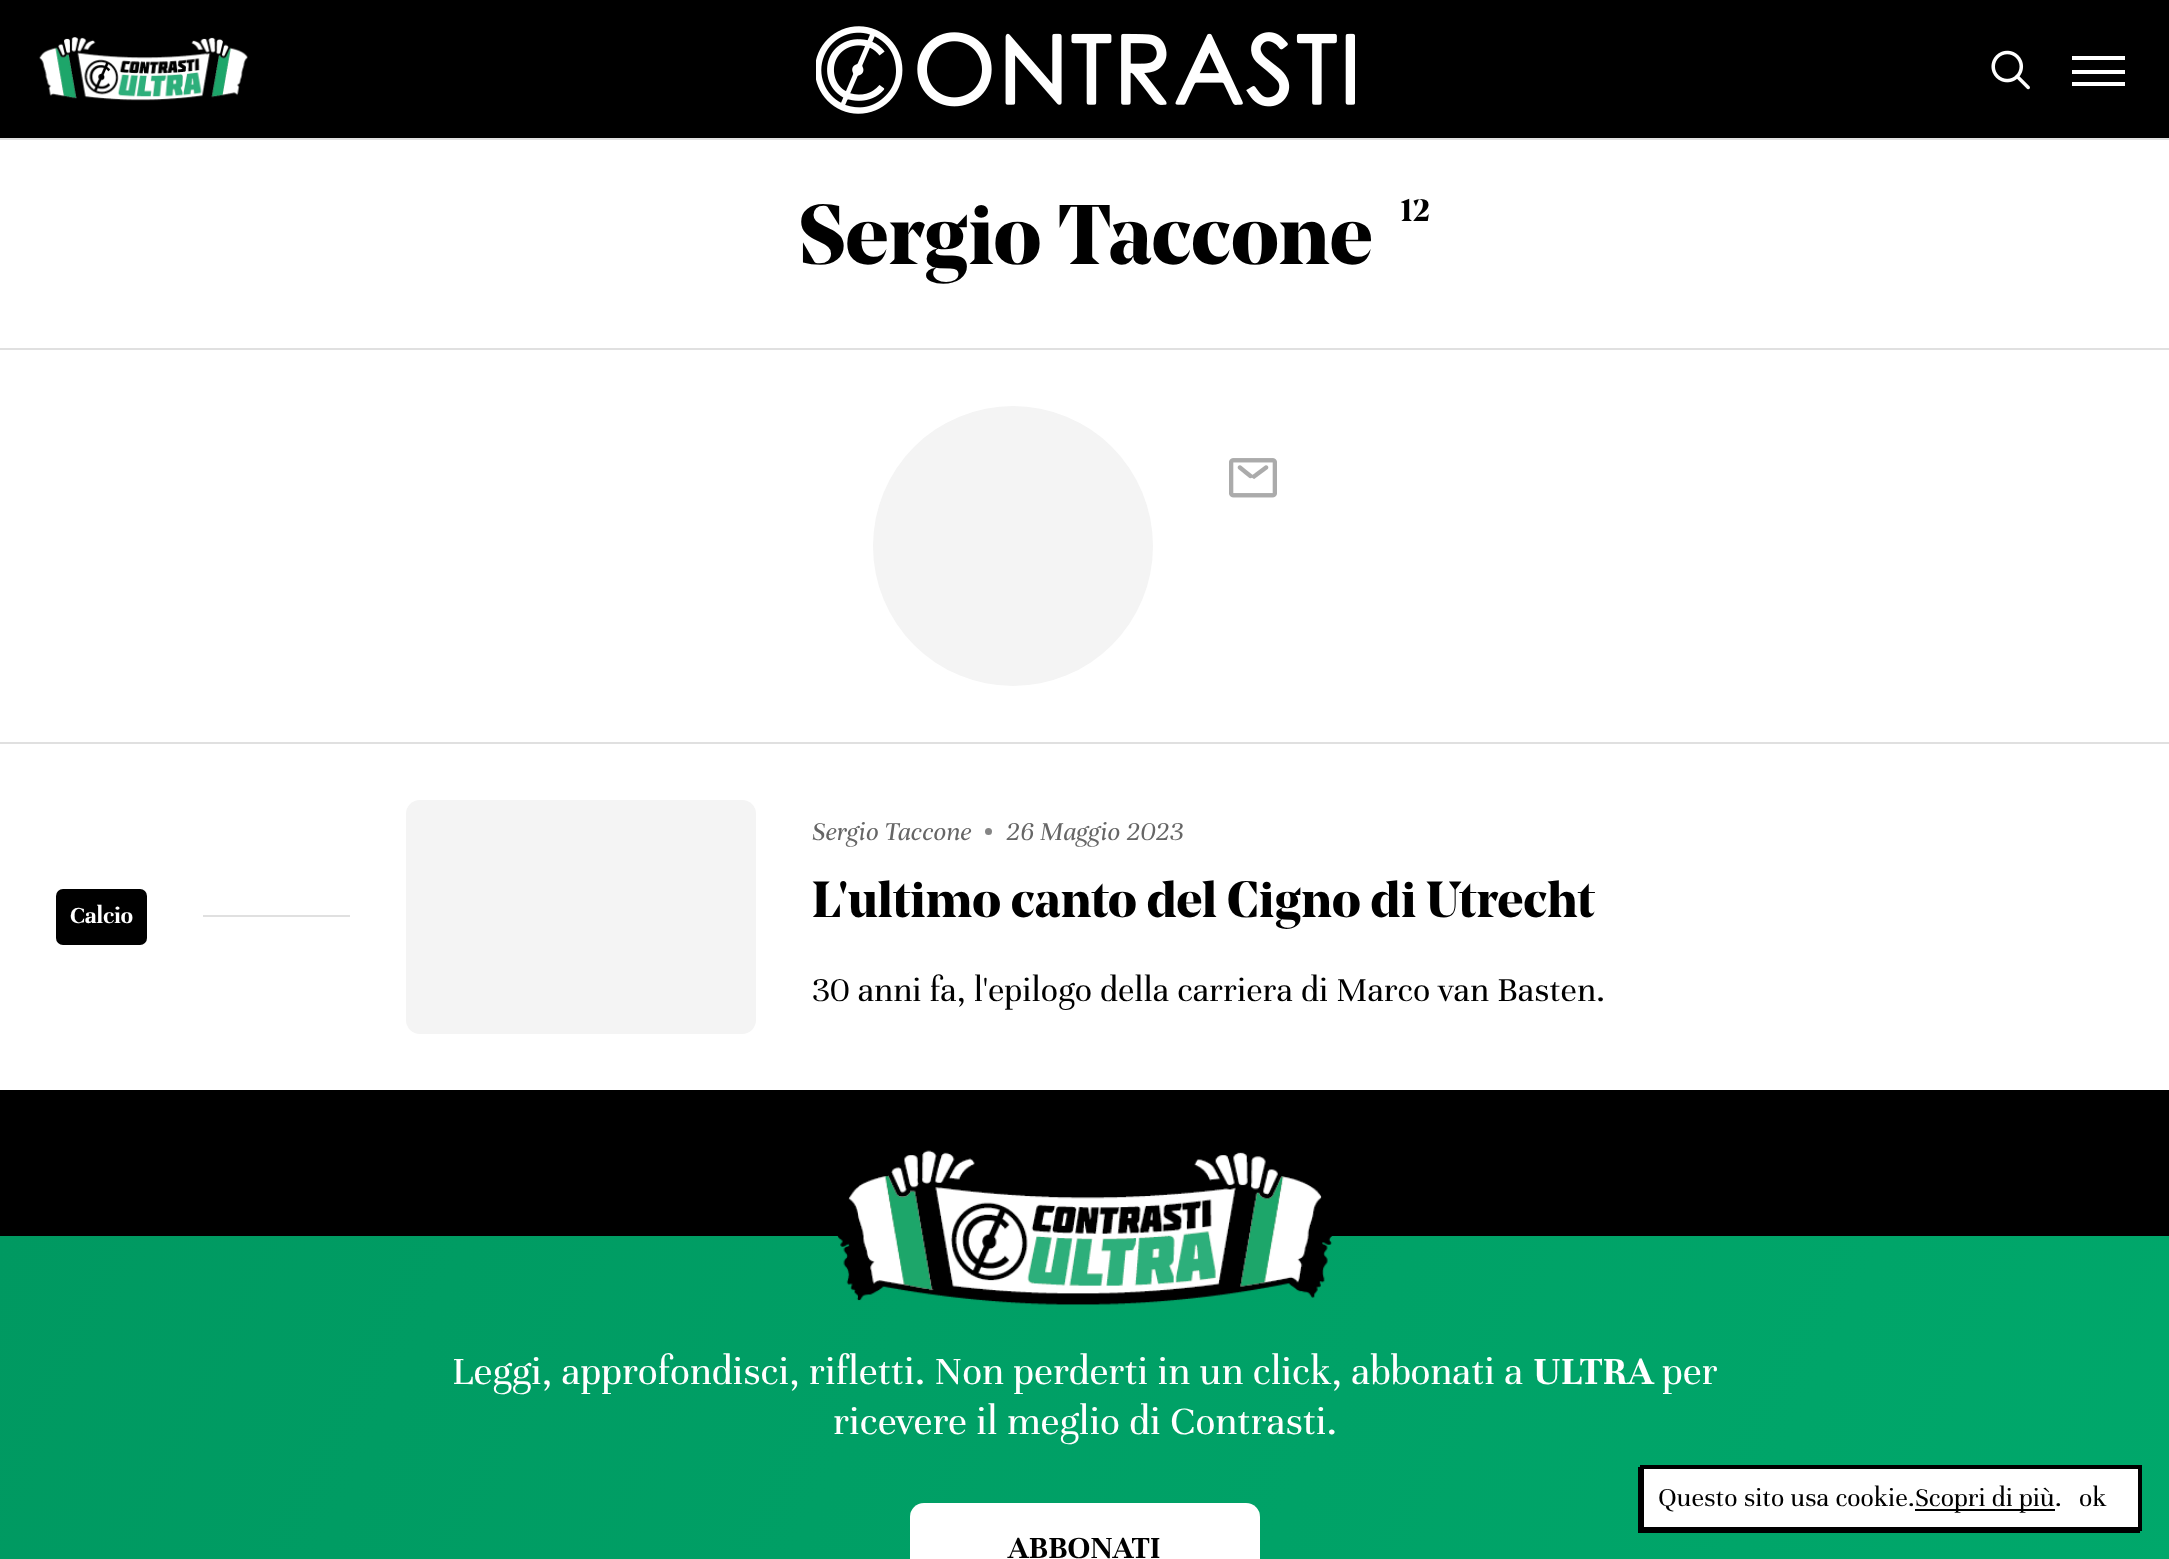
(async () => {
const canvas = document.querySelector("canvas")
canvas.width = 2169
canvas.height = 1559
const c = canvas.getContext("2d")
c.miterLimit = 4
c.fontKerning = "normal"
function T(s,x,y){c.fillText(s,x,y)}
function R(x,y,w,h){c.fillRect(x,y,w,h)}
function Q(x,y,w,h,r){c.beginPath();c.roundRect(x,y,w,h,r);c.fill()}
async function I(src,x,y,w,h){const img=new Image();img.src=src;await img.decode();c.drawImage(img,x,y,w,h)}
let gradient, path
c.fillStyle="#fff"
R(0,0,2169,1559)
c.fillStyle="#000"
R(0,0,2169,138)
c.fillStyle="#e0e0e0"
R(0,138,2169,2)
await I("1.png",39,37,209,64)
await I("2.png",816,26,87,88)
await I("3.png",917,32,438,75)
await I("4.png",1991,50,39,40)
c.fillStyle="#fff"
R(2072,56,53,4)
R(2072,70,53,4)
R(2072,82,53,4)
c.fillStyle="#e0e0e0"
R(0,348,2169,2)
c.font="bold 84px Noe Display"
c.fillStyle="#000"
T("Sergio Taccone",798,264)
c.font="bold 31px Noe Display"
T("12",1400,221)
c.fillStyle="#e0e0e0"
R(0,742,2169,2)
c.fillStyle="#f4f4f4"
c.beginPath()
c.arc(1013,546,140,0,7)
c.fill()
await I("5.png",1229,458,48,40)
c.fillStyle="#000"
Q(56,889,91,56,7)
c.font="bold 25px Unna"
c.fillStyle="#fff"
T("Calcio",70,923)
c.fillStyle="#e0e0e0"
R(203,915,147,2)
c.fillStyle="#f4f4f4"
Q(406,800,350,234,14)
c.font="italic 28px Unna"
c.fillStyle="#666"
T("Sergio Taccone",812,840)
c.fillStyle="#858585"
c.beginPath()
c.arc(988.5,831.5,3.5,0,7)
c.fill()
c.fillStyle="#666"
T("26 Maggio 2023",1006,840)
c.font="bold 50.4px Noe Display"
c.fillStyle="#000"
T("L'ultimo canto del Cigno di Utrecht",812,917)
c.font="36.4px Unna"
T("30 anni fa, l'epilogo della carriera di Marco van Basten.",812,1001)
R(0,1090,2169,146)
gradient = c.createLinearGradient(115,989,2055,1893)
gradient.addColorStop(0,"#009961")
gradient.addColorStop(1,"#00a86b")
c.fillStyle = gradient
R(0,1236,2169,323)
await I("6.png",837,1150,496,155)
c.font="42px Unna"
c.fillStyle="#fff"
T("Leggi, approfondisci, rifletti. Non perderti in un click, abbonati a",452,1384)
c.font="bold 42px Unna"
T("ULTRA",1533,1384)
c.font="42px Unna"
T("per",1662,1384)
T("ricevere il meglio di Contrasti.",833,1434)
Q(910,1503,350,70,14)
c.font="bold 33.5px Unna"
c.fillStyle="#000"
T("ABBONATI",1008,1558)
path = new Path2D("M1638 1467v66h502v-2h-500v-64z")
c.fill(path)
c.fillStyle="#fff"
c.beginPath()
c.rect(1642,1467,498,62)
c.fill()
c.strokeStyle="#000"
c.lineWidth=4
c.stroke()
c.font="28px Unna"
c.fillStyle="#000"
T("Questo sito usa cookie.",1658,1506)
R(1915,1509,140,2)
T("Scopri di più.",1915,1506)
T("ok",2079,1506)
})()
